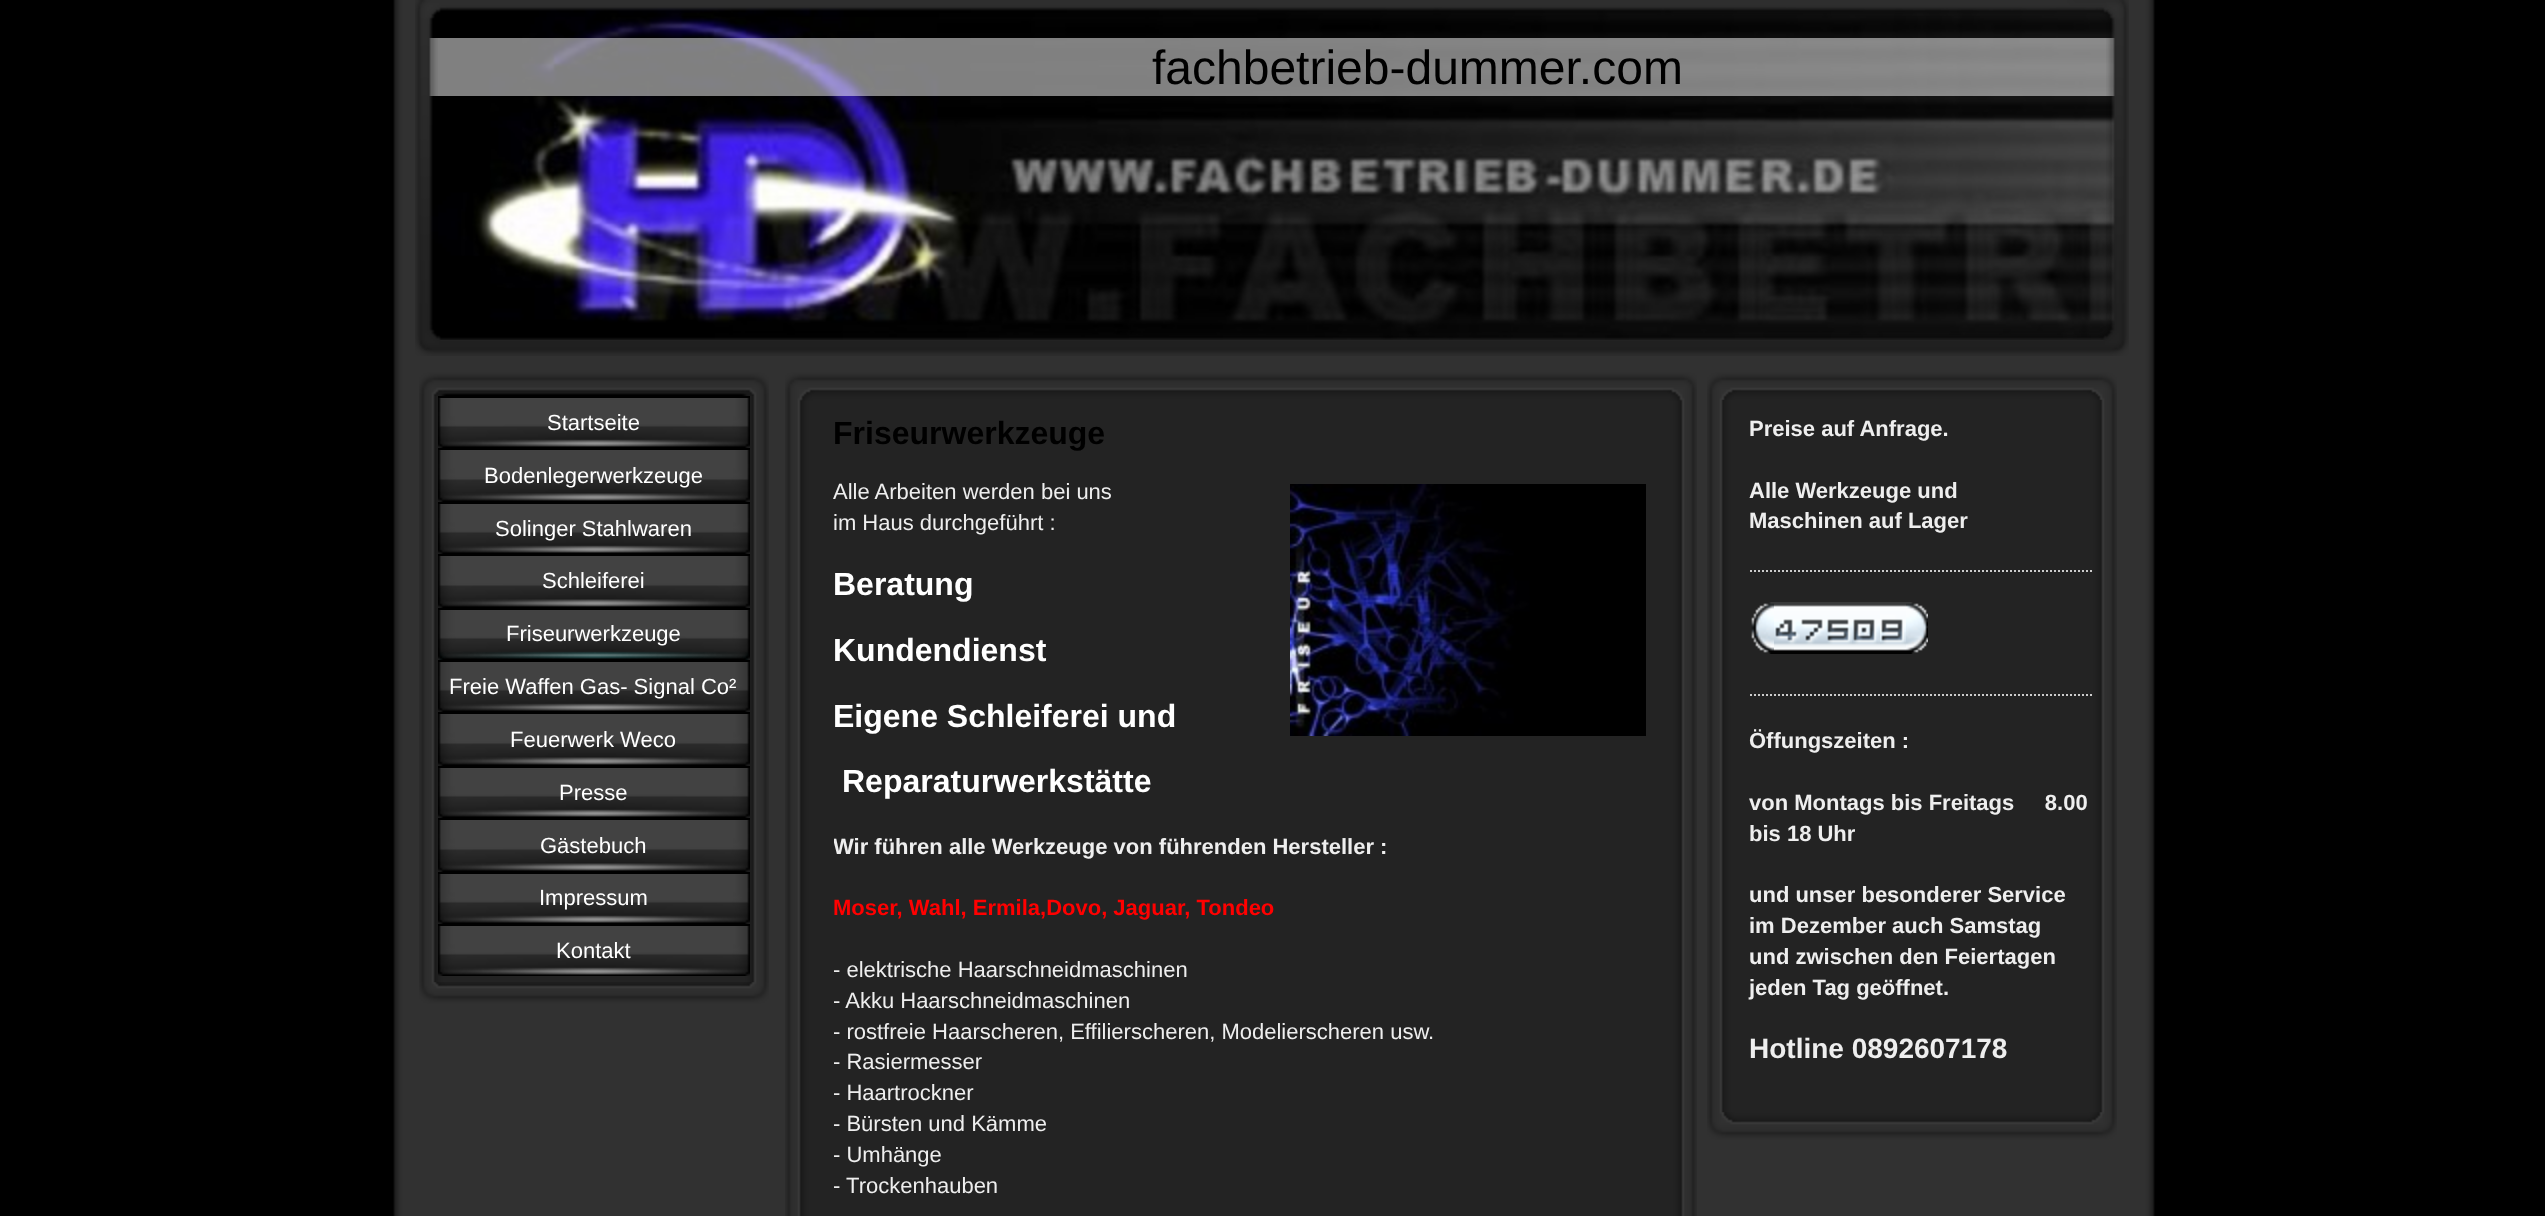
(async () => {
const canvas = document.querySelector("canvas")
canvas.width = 2545
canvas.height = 1216
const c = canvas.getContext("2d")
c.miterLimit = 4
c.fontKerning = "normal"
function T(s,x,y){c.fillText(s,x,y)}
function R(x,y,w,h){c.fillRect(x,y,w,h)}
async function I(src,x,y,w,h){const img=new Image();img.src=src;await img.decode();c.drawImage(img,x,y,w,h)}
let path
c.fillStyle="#000"
R(0,0,2545,1216)
await I("1.png",393,0,1762,1216)
await I("4.png",429,7,1686,333)
await I("2.png",415,0,1714,22)
c.fillStyle="#ffffff80"
R(429,38,1686,58)
await I("3.png",415,22,23,304)
c.font="48px Liberation Sans"
c.fillStyle="#000"
T("fachbetrieb-dummer.com",1152,84)
await I("5.png",2106,22,23,304)
await I("6.png",415,326,1714,30)
await I("7.png",419,396,350,586)
await I("8.png",419,372,350,24)
await I("9.png",438,398,312,50)
R(438,396,312,2)
c.font="22px Liberation Sans"
c.fillStyle="#fff"
T("Startseite",547,430)
await I("10.png",438,450,312,52)
c.fillStyle="#000"
R(438,448,312,2)
c.fillStyle="#fff"
T("Bodenlegerwerkzeuge",484,483)
await I("9.png",438,504,312,50)
c.fillStyle="#000"
R(438,502,312,2)
c.fillStyle="#fff"
T("Solinger Stahlwaren",495,536)
await I("10.png",438,556,312,52)
c.fillStyle="#000"
R(438,554,312,2)
c.fillStyle="#fff"
T("Schleiferei",542,588)
c.fillStyle="#366"
R(439,651,310,9)
await I("11.png",438,610,312,50)
c.fillStyle="#000"
R(438,608,312,2)
c.fillStyle="#fff"
T("Friseurwerkzeuge",506,641)
await I("9.png",438,662,312,50)
c.fillStyle="#000"
R(438,660,312,2)
c.fillStyle="#fff"
T("Freie Waffen Gas- Signal Co²",449,694)
await I("10.png",438,714,312,52)
c.fillStyle="#000"
R(438,712,312,2)
c.fillStyle="#fff"
T("Feuerwerk Weco",510,747)
await I("9.png",438,768,312,50)
c.fillStyle="#000"
R(438,766,312,2)
c.fillStyle="#fff"
T("Presse",559,800)
await I("10.png",438,820,312,52)
c.fillStyle="#000"
R(438,818,312,2)
c.fillStyle="#fff"
T("Gästebuch",540,853)
await I("9.png",438,874,312,50)
c.fillStyle="#000"
R(438,872,312,2)
c.fillStyle="#fff"
T("Impressum",539,905)
await I("9.png",438,926,312,50)
c.fillStyle="#000"
R(438,924,312,2)
c.fillStyle="#fff"
T("Kontakt",556,958)
await I("12.png",419,982,350,22)
await I("13.png",785,401,912,815)
await I("14.png",785,372,912,29)
c.font="bold 32px Liberation Sans"
c.fillStyle="#000"
T("Friseurwerkzeuge",833,444)
c.font="22px Liberation Sans"
c.fillStyle="#eee"
T("Alle Arbeiten werden bei uns",833,499)
T("im Haus durchgeführt :",833,530)
c.font="bold 32px Liberation Sans"
c.fillStyle="#fff"
T("Beratung",833,595)
T("Kundendienst",833,661)
T("Eigene Schleiferei und",833,727)
T("Reparaturwerkstätte",842,792)
c.save()
c.beginPath()
c.rect(834,476,814,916)
c.clip()
c.font="bold 22px Liberation Sans"
c.fillStyle="#eee"
T("Wir führen alle Werkzeuge von führenden Hersteller :",833,854)
c.restore()
c.font="bold 22px Liberation Sans"
c.fillStyle="#f00"
T("Moser, Wahl, Ermila,Dovo, Jaguar, Tondeo",833,915)
c.font="22px Liberation Sans"
c.fillStyle="#eee"
T("- elektrische Haarschneidmaschinen",833,977)
T("- Akku Haarschneidmaschinen",833,1008)
T("- rostfreie Haarscheren, Effilierscheren, Modelierscheren usw.",833,1039)
T("- Rasiermesser",833,1069)
T("- Haartrockner",833,1100)
T("- Bürsten und Kämme",833,1131)
T("- Umhänge",833,1162)
T("- Trockenhauben",833,1193)
await I("15.png",1290,484,356,252)
await I("16.png",1707,400,410,712)
await I("17.png",1707,372,410,28)
c.font="bold 22px Liberation Sans"
T("Preise auf Anfrage.",1749,436)
T("Alle Werkzeuge und",1749,498)
T("Maschinen auf Lager",1749,528)
path = new Path2D("M1750 571h344")
c.strokeStyle="#ccc"
c.lineWidth=2
c.setLineDash([2,2])
c.stroke(path)
await I("18.png",1751,602,23,52)
await I("19.png",1774,602,26,52)
await I("20.png",1800,602,26,52)
await I("21.png",1826,602,26,52)
await I("22.png",1852,602,28,52)
await I("23.png",1880,602,26,52)
await I("24.png",1906,602,22,52)
path = new Path2D("M1750 695h344")
c.stroke(path)
T("Öffungszeiten :",1749,748)
T("von Montags bis Freitags     8.00",1749,810)
T("bis 18 Uhr",1749,841)
T("und unser besonderer Service",1749,902)
T("im Dezember auch Samstag",1749,933)
T("und zwischen den Feiertagen",1749,964)
T("jeden Tag geöffnet.",1749,995)
c.font="bold 28px Liberation Sans"
T("Hotline 0892607178",1749,1058)
await I("25.png",1707,1112,410,28)
})()
